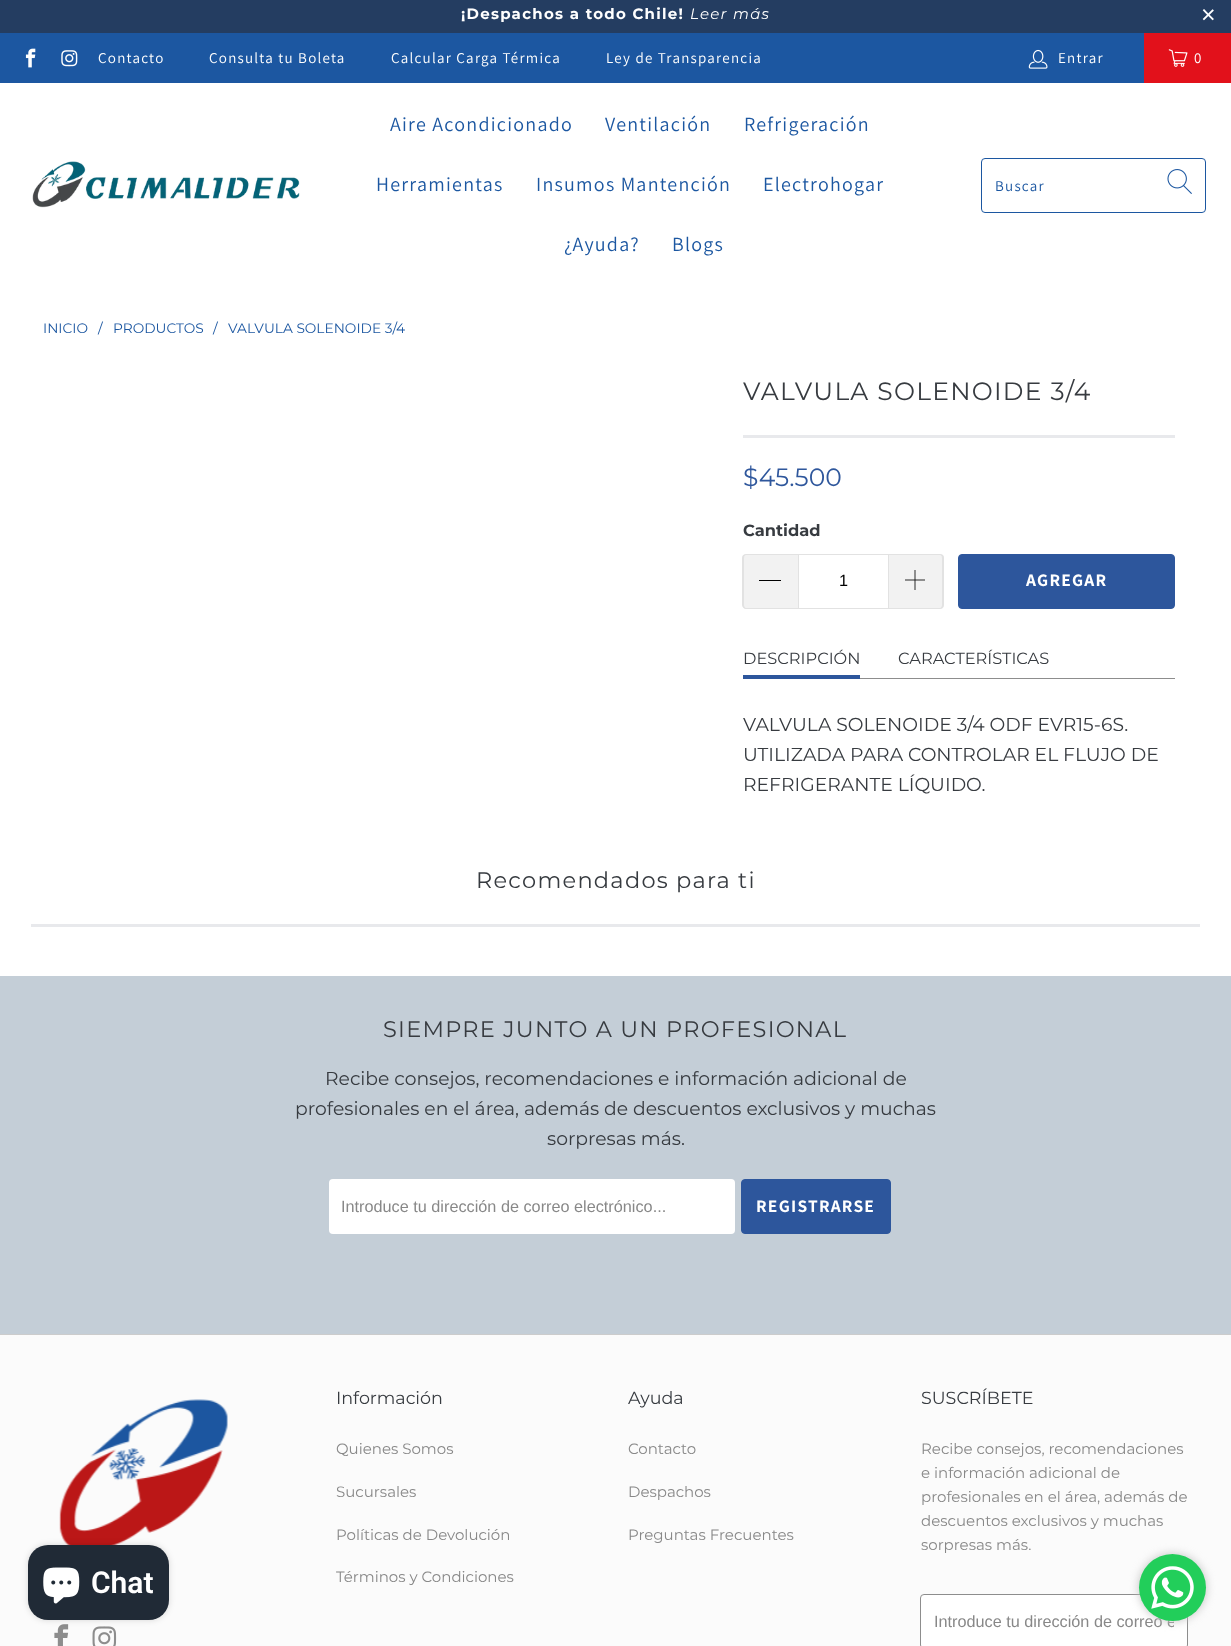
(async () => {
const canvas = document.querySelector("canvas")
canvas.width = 1231
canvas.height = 1646
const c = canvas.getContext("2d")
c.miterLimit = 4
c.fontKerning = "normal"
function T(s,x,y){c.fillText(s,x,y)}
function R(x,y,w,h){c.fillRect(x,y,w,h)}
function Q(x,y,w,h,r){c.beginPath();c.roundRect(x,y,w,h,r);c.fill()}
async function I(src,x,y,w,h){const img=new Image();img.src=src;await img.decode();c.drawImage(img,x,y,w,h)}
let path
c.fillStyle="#fff"
R(0,0,1231,1646)
c.fillStyle="#243d61"
R(0,0,1231,33)
c.letterSpacing="1.25px"
c.font="bold 15px Montserrat"
c.fillStyle="#fff"
T("¡Despachos a todo Chile!",461,19)
c.font="italic 15px Montserrat"
T("Leer más",690,19)
c.font="25px Liberation Sans"
T("×",1201,23)
c.fillStyle="#1c57a1"
R(0,33,1144,50)
await I("1.png",25,48,11,20)
await I("2.png",61,50,17,17)
c.font="15px Assistant"
c.fillStyle="#fff"
T("Contacto",98,63)
T("Consulta tu Boleta",209,63)
T("Calcular Carga Térmica",391,63)
T("Ley de Transparencia",606,63)
await I("3.png",1028,49,20,20)
T("Entrar",1058,63)
c.fillStyle="#e2111b"
R(1144,33,87,50)
await I("4.png",1168,49,20,18)
c.fillStyle="#fff"
T("0",1194,63)
await I("5.png",32,161,268,47)
c.font="20px Assistant"
c.fillStyle="#1c57a1"
T("Aire Acondicionado",390,131)
T("Ventilación",605,131)
T("Refrigeración",744,131)
T("Herramientas",376,191)
T("Insumos Mantención",536,191)
T("Electrohogar",763,191)
T("¿Ayuda?",564,251)
T("Blogs",672,251)
c.beginPath()
c.roundRect(981.5,158.5,224,54,3.5)
c.strokeStyle="#1c57a1"
c.stroke()
c.font="15px Assistant"
T("Buscar",995,191)
await I("6.png",1167,169,25,25)
c.letterSpacing="0px"
c.font="13.75px Montserrat"
T("INICIO",43,333)
T("/",98,333)
T("PRODUCTOS",113,333)
T("/",213,333)
T("VALVULA SOLENOIDE 3/4",228,333)
c.letterSpacing="1.25px"
c.font="25px Montserrat"
c.fillStyle="#373b40"
T("VALVULA SOLENOIDE 3/4",743,400)
c.fillStyle="#e8e9ec"
R(743,435,432,3)
c.letterSpacing="0px"
c.fillStyle="#2f579c"
T("$45.500",743,486)
c.font="bold 16.25px Montserrat"
c.fillStyle="#373b40"
T("Cantidad",743,536)
c.fillStyle="#f2f2f2"
c.beginPath()
c.roundRect(743,554,55,55,[4,0,0,4])
c.fill()
c.fillStyle="#e2e2e2"
path = new Path2D("M746 554h52v55h-52c-2 0-4-2-4-4v-47c0-3 2-4 4-4zm0 1h52v53h-52c-1 0-2-2-2-3v-47c0-2 1-3 2-3z")
c.fill(path,"evenodd")
c.fillStyle="#000"
R(759,580,22,1)
c.strokeStyle="#e2e2e2"
c.strokeRect(798.5,554.5,90,54)
c.font="16.25px Liberation Sans"
T("1",839,586)
c.fillStyle="#f2f2f2"
c.beginPath()
c.roundRect(889,554,55,55,[0,4,4,0])
c.fill()
c.fillStyle="#e2e2e2"
path = new Path2D("M889 554h51c2 0 4 1 4 4v47c0 2-2 4-4 4h-51zm0 1h51c1 0 2 1 2 3v47c0 1-1 3-2 3h-51z")
c.fill(path,"evenodd")
await I("7.png",905,570,20,20)
c.fillStyle="#2d569c"
c.beginPath()
c.roundRect(958.5,554.5,216,54,3.5)
c.fill()
c.strokeStyle="#2d569c"
c.stroke()
c.letterSpacing="1.25px"
c.font="bold 17.5px Assistant"
c.fillStyle="#fff"
T("AGREGAR",1026,586)
c.fillStyle="#8d8d8d"
R(860,678,315,1)
c.fillStyle="#2d569c"
R(743,675,117,4)
c.letterSpacing="0px"
c.font="16.25px Montserrat"
c.fillStyle="#373b40"
T("DESCRIPCIÓN",743,664)
T("CARACTERÍSTICAS",898,664)
c.font="18.75px Montserrat"
T("VALVULA SOLENOIDE 3/4 ODF EVR15-6S.",743,731)
T("UTILIZADA PARA CONTROLAR EL FLUJO DE",743,761)
T("REFRIGERANTE LÍQUIDO.",743,791)
c.letterSpacing="1.25px"
c.font="22.5px Montserrat"
T("Recomendados para ti",476,888)
c.fillStyle="#e8e9ec"
R(31,924,1169,3)
c.fillStyle="#c4ced7"
R(0,976,1231,358)
c.fillStyle="#373b40"
T("SIEMPRE JUNTO A UN PROFESIONAL",383,1037)
c.letterSpacing="0px"
c.font="18.75px Montserrat"
T("Recibe consejos, recomendaciones e información adicional de",325,1085)
T("profesionales en el área, además de descuentos exclusivos y muchas",295,1115)
T("sorpresas más.",547,1145)
c.fillStyle="#fff"
Q(329,1179,406,55,4)
c.font="16.25px Liberation Sans"
c.fillStyle="#888"
T("Introduce tu dirección de correo electrónico...",341,1212)
c.fillStyle="#2d569c"
c.beginPath()
c.roundRect(741.5,1179.5,149,54,3.5)
c.fill()
c.stroke()
c.letterSpacing="1.25px"
c.font="bold 17.5px Assistant"
c.fillStyle="#fff"
T("REGISTRARSE",756,1212)
c.fillStyle="#fbfbfb"
R(0,1335,1231,311)
c.fillStyle="#ccc"
R(0,1334,1231,1)
await I("8.png",59,1399,169,146)
await I("9.png",54,1624,15,22)
await I("10.png",92,1626,25,20)
c.letterSpacing="0px"
c.font="17.5px Montserrat"
c.fillStyle="#373b40"
T("Información",336,1404)
c.font="15px Montserrat"
c.fillStyle="#888"
T("Quienes Somos",336,1454)
T("Sucursales",336,1497)
T("Políticas de Devolución",336,1540)
T("Términos y Condiciones",336,1582)
c.font="17.5px Montserrat"
c.fillStyle="#373b40"
T("Ayuda",628,1404)
c.font="15px Montserrat"
c.fillStyle="#888"
T("Contacto",628,1454)
T("Despachos",628,1497)
T("Preguntas Frecuentes",628,1540)
c.font="17.5px Montserrat"
c.fillStyle="#373b40"
T("SUSCRÍBETE",921,1404)
c.font="15px Montserrat"
c.fillStyle="#888"
T("Recibe consejos, recomendaciones",921,1454)
T("e información adicional de",921,1478)
T("profesionales en el área, además de",921,1502)
T("descuentos exclusivos y muchas",921,1526)
T("sorpresas más.",921,1550)
c.fillStyle="#fff"
c.beginPath()
c.roundRect(920.5,1594.5,267,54,3.5)
c.fill()
c.strokeStyle="#8d8d8d"
c.stroke()
c.save()
c.beginPath()
c.rect(934,1613,240,18)
c.clip()
c.font="16.25px Liberation Sans"
c.fillStyle="#888"
T("Introduce tu dirección de correo e",934,1627)
c.restore()
c.fillStyle="#00000026"
c.filter="blur(3px)"
c.beginPath()
c.roundRect(28,1545,141,75,20)
c.fill()
c.filter="none"
c.fillStyle="#202a36"
Q(28,1545,141,75,20)
await I("11.png",43,1567,37,37)
c.font="600 30px Roboto"
c.fillStyle="#fff"
T("Chat",91,1593)
c.fillStyle="#c2c2c2"
c.filter="blur(5px)"
c.beginPath()
c.roundRect(1139,1554,67,67,33.5)
c.fill()
c.filter="none"
c.fillStyle="#22ce5a"
c.beginPath()
c.arc(1172.5,1587.5,33.5,0,7)
c.fill()
await I("12.png",1151,1566,43,43)
})()
